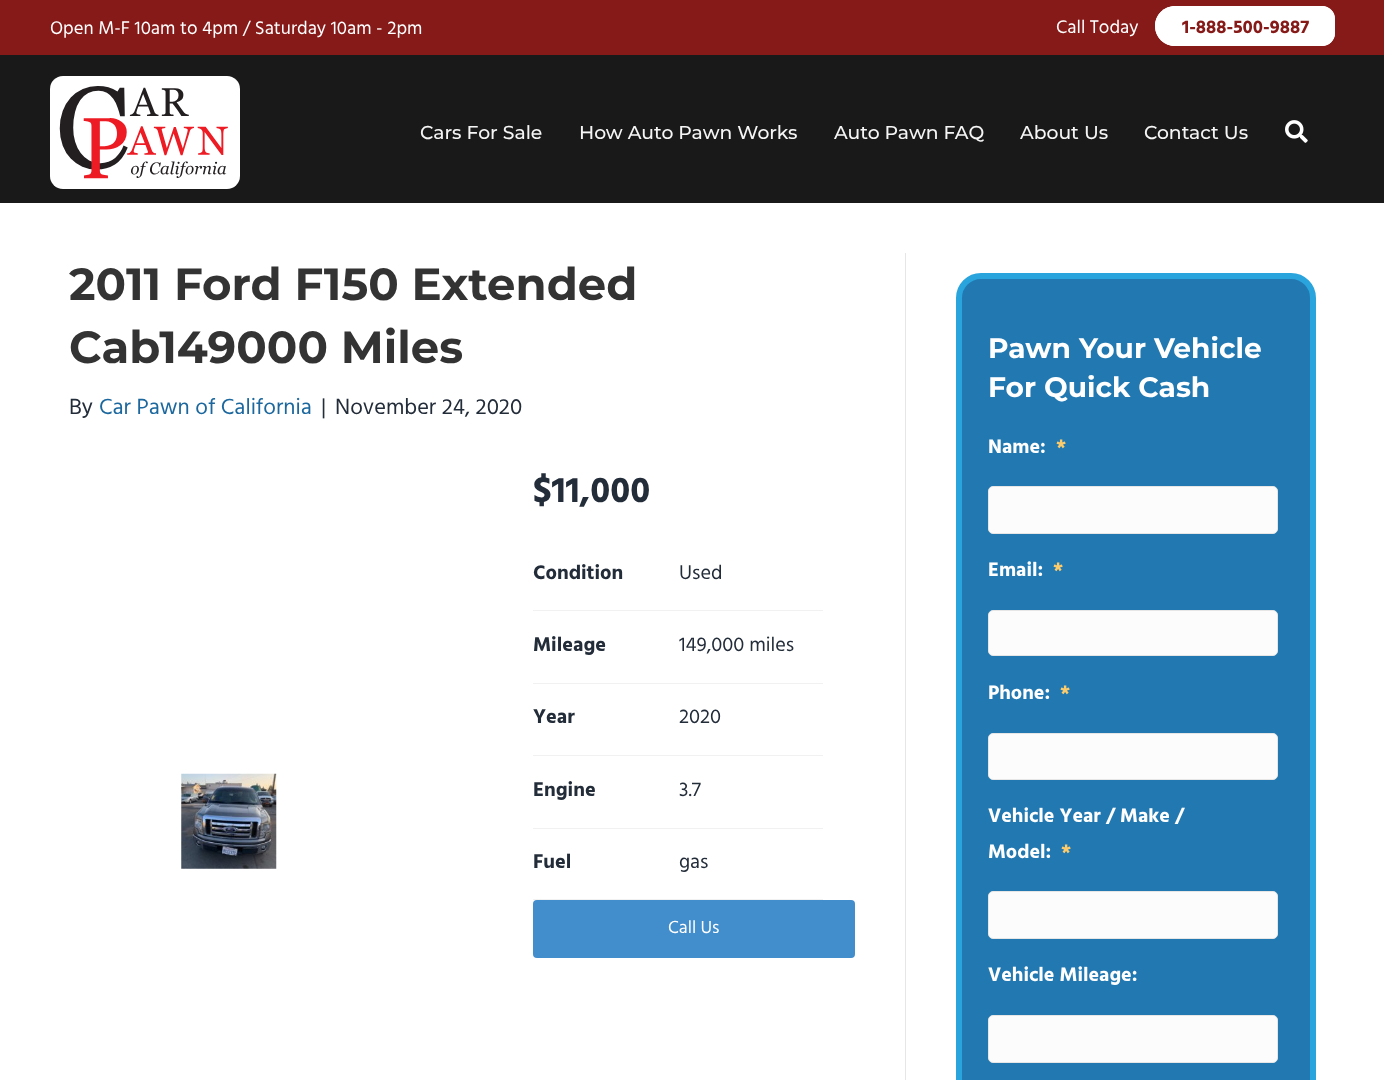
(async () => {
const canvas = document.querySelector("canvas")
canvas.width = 1384
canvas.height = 1080
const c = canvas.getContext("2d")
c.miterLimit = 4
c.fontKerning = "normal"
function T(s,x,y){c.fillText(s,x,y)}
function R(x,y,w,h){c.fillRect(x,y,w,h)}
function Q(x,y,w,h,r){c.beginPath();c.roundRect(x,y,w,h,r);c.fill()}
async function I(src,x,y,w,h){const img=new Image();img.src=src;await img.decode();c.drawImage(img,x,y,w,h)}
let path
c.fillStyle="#fff"
R(0,0,1384,1080)
c.fillStyle="#851a18"
R(0,0,1384,55)
c.font="18.75px Hind"
c.fillStyle="#fff"
T("Open M-F 10am to 4pm / Saturday 10am - 2pm",50,34)
T("Call Today",1056,33)
c.beginPath()
c.roundRect(1155,6,154,40,[20,0,0,20])
c.fill()
path = new Path2D("M1175 6h134v40h-134c-11 0-20-9-20-20c0-11 9-20 20-20zm0 2h134v37h-138c-22-5-18-37 4-37z")
c.fill(path,"evenodd")
c.font="bold 18.75px Hind"
c.fillStyle="#851a18"
T("1-888-500-9887",1182,33)
c.fillStyle="#fff"
c.beginPath()
c.roundRect(1309,6,26,40,[0,13,13,0])
c.fill()
path = new Path2D("M1309 6h13c7 0 13 6 13 13v14c0 7-6 13-13 13h-13zm0 2h13c6 0 12 5 12 11v14c0 7-6 12-12 12h-13z")
c.fill(path,"evenodd")
c.fillStyle="#191919"
R(0,55,1384,148)
c.fillStyle="#fff"
Q(50,76,190,113,13)
await I("1.png",59,86,169,93)
c.font="500 18.75px Montserrat"
c.fillStyle="#f5f5f5"
T("Cars For Sale",420,139)
T("How Auto Pawn Works",579,139)
T("Auto Pawn FAQ",834,139)
T("About Us",1020,139)
T("Contact Us",1144,139)
await I("2.png",1285,120,23,23)
c.fillStyle="#e6e6e6"
R(905,253,1,827)
c.font="bold 45px Montserrat"
c.fillStyle="#333"
T("2011 Ford F150 Extended",69,300)
T("Cab149000 Miles",69,363)
c.font="22.5px Hind"
c.fillStyle="#232c39"
T("By",69,414)
c.fillStyle="#1c689e"
T("Car Pawn of California",99,414)
c.fillStyle="#232c39"
T("|",321,414)
T("November 24, 2020",335,414)
await I("3.png",181,773,96,96)
c.font="bold 36.5px Hind"
T("$11,000",533,502)
c.font="bold 20.25px Hind"
T("Condition",533,579)
c.fillStyle="#f1f1f1"
R(533,610,290,1)
c.font="20.25px Hind"
c.fillStyle="#232c39"
T("Used",679,579)
c.font="bold 20.25px Hind"
T("Mileage",533,651)
c.fillStyle="#f1f1f1"
R(533,683,290,1)
c.font="20.25px Hind"
c.fillStyle="#232c39"
T("149,000 miles",679,651)
c.font="bold 20.25px Hind"
T("Year",533,723)
c.fillStyle="#f1f1f1"
R(533,755,290,1)
c.font="20.25px Hind"
c.fillStyle="#232c39"
T("2020",679,723)
c.font="bold 20.25px Hind"
T("Engine",533,796)
c.fillStyle="#f1f1f1"
R(533,828,290,1)
c.font="20.25px Hind"
c.fillStyle="#232c39"
T("3.7",679,796)
c.font="bold 20.25px Hind"
T("Fuel",533,868)
c.fillStyle="#f1f1f1"
R(533,899,290,1)
c.font="20.25px Hind"
c.fillStyle="#232c39"
T("gas",679,868)
c.fillStyle="#428dcb"
Q(533,900,322,58,4)
c.font="18px Hind"
c.fillStyle="#fff"
T("Call Us",668,933)
c.fillStyle="#2278b1"
c.beginPath()
c.roundRect(959,276,354,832,22)
c.fill()
c.strokeStyle="#2aa4dd"
c.lineWidth=6
c.stroke()
c.font="bold 28.1px Montserrat"
c.fillStyle="#fff"
T("Pawn Your Vehicle",988,358)
T("For Quick Cash",988,397)
c.font="bold 20px Hind"
T("Name:",988,453)
c.fillStyle="#fccc6c"
T("*",1056,453)
c.fillStyle="#fcfcfc"
c.beginPath()
c.roundRect(988.5,486.5,289,47,4.5)
c.fill()
c.strokeStyle="#e6e6e6"
c.lineWidth=1
c.stroke()
c.fillStyle="#fff"
T("Email:",988,576)
c.fillStyle="#fccc6c"
T("*",1053,576)
c.fillStyle="#fcfcfc"
c.beginPath()
c.roundRect(988.5,610.5,289,45,4.5)
c.fill()
c.stroke()
c.fillStyle="#fff"
T("Phone:",988,699)
c.fillStyle="#fccc6c"
T("*",1060,699)
c.fillStyle="#fcfcfc"
c.beginPath()
c.roundRect(988.5,733.5,289,46,4.5)
c.fill()
c.stroke()
c.fillStyle="#fff"
T("Vehicle Year / Make /",988,822)
T("Model:",988,858)
c.fillStyle="#fccc6c"
T("*",1061,858)
c.fillStyle="#fcfcfc"
c.beginPath()
c.roundRect(988.5,891.5,289,47,4.5)
c.fill()
c.stroke()
c.fillStyle="#fff"
T("Vehicle Mileage:",988,981)
c.fillStyle="#fcfcfc"
c.beginPath()
c.roundRect(988.5,1015.5,289,47,4.5)
c.fill()
c.stroke()
})()
